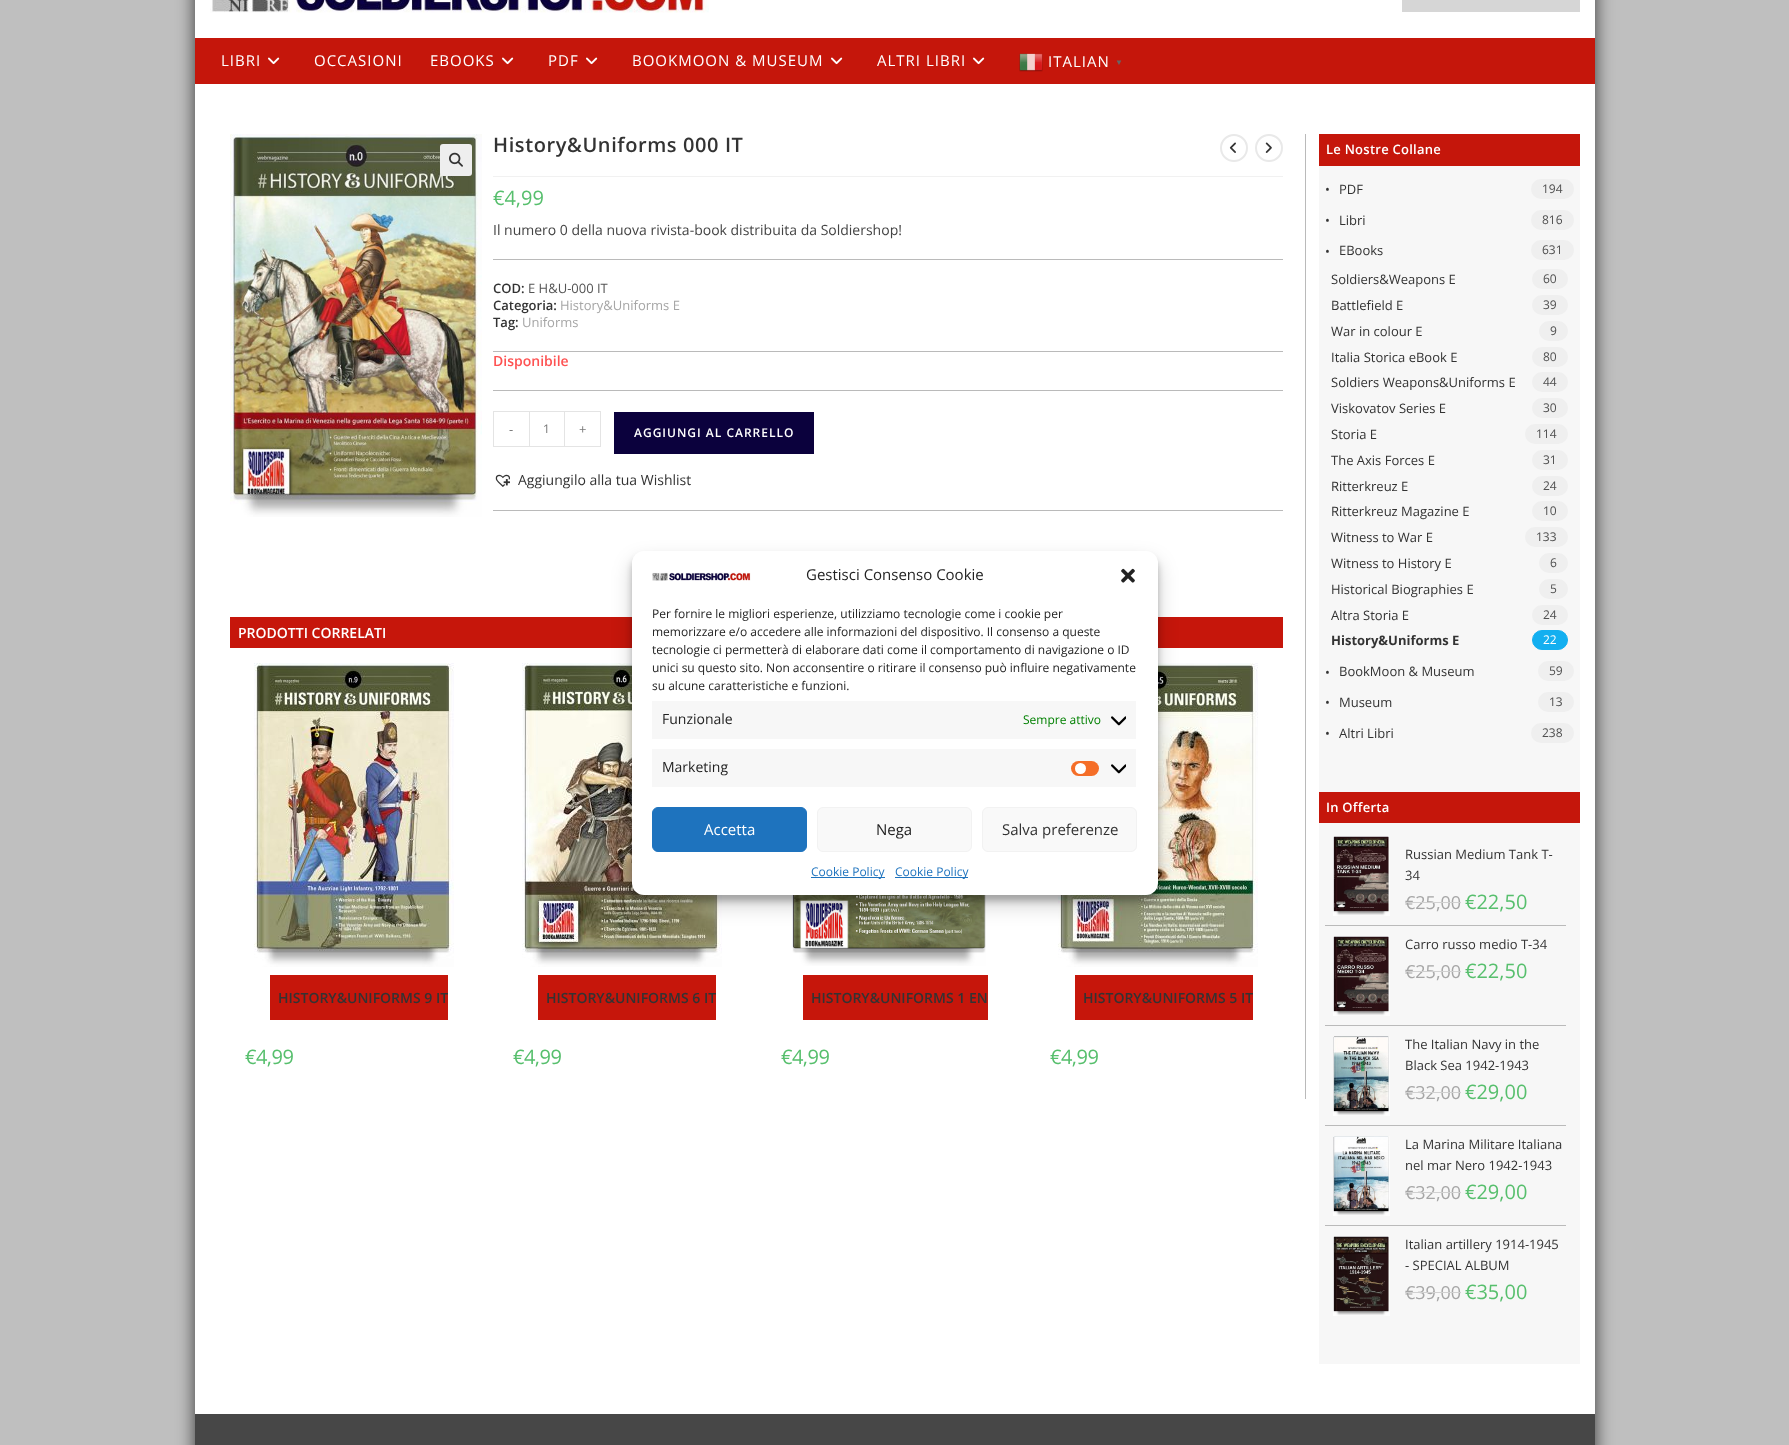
(async () => {
const canvas = document.querySelector("canvas")
canvas.width = 1789
canvas.height = 1445
const c = canvas.getContext("2d")
c.miterLimit = 4
c.fontKerning = "normal"
function T(s,x,y){c.fillText(s,x,y)}
function R(x,y,w,h){c.fillRect(x,y,w,h)}
function Q(x,y,w,h,r){c.beginPath();c.roundRect(x,y,w,h,r);c.fill()}
async function I(src,x,y,w,h){const img=new Image();img.src=src;await img.decode();c.drawImage(img,x,y,w,h)}
c.fillStyle="#bfbfbf"
R(0,0,1789,1445)
c.fillStyle="#000000b3"
c.filter="blur(9px)"
c.beginPath()
c.rect(195,-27,1400,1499)
c.fill()
c.filter="none"
c.fillStyle="#fff"
R(195,0,1400,1414)
await I("1.png",210,0,499,13)
c.fillStyle="#d6d6d6"
R(1402,0,178,12)
c.fillStyle="#c5160b"
R(195,38,1400,46)
c.letterSpacing="1px"
c.font="15px Open Sans"
c.fillStyle="#fff"
T("LIBRI",221,66)
await I("2.png",268,57,12,8)
T("OCCASIONI",314,66)
T("EBOOKS",430,66)
await I("2.png",502,57,12,8)
T("PDF",548,66)
await I("2.png",586,57,12,8)
T("BOOKMOON & MUSEUM",632,66)
await I("2.png",831,57,12,8)
T("ALTRI LIBRI",877,66)
await I("2.png",973,57,12,8)
await I("3.png",1019,53,24,19)
T("ITALIAN",1048,67)
c.font="bold 8px Liberation Sans"
c.fillStyle="#666"
T("▼",1115,65)
c.fillStyle="#bababa"
R(1305,134,1,965)
await I("4.png",230,134,252,383)
c.fillStyle="#eee"
Q(440,144,32,32,3)
await I("5.png",449,152,14,15)
c.fillStyle="#f1f1f1"
R(493,176,790,1)
c.letterSpacing="0.6px"
c.font="600 20px Open Sans"
c.fillStyle="#333"
T("History&Uniforms 000 IT",493,152)
c.letterSpacing="0px"
c.font="20px Open Sans"
c.fillStyle="#57bf6d"
T("€4,99",493,205)
c.font="14px Open Sans"
c.fillStyle="#444"
T("Il numero 0 della nuova rivista-book distribuita da Soldiershop!",493,235)
c.fillStyle="#bababa"
R(493,259,790,1)
R(493,351,790,1)
c.font="600 13px Open Sans"
c.fillStyle="#333"
T("COD:",493,293)
c.font="13px Open Sans"
c.fillStyle="#555"
T("E H&U-000 IT",528,293)
c.font="600 13px Open Sans"
c.fillStyle="#333"
T("Categoria:",493,310)
c.font="13px Open Sans"
c.fillStyle="#a6a6a6"
T("History&Uniforms E",560,310)
c.font="600 13px Open Sans"
c.fillStyle="#333"
T("Tag:",493,327)
c.font="13px Open Sans"
c.fillStyle="#a6a6a6"
T("Uniforms",522,327)
c.font="600 14px Open Sans"
c.fillStyle="#fe5252"
T("Disponibile",493,366)
c.fillStyle="#bababa"
R(493,390,790,1)
R(493,510,790,1)
c.fillStyle="#e4e4e4"
R(493,411,36,1)
R(493,446,36,1)
R(493,411,1,36)
c.font="13px Open Sans"
c.fillStyle="#777"
T("-",509,434)
c.strokeStyle="#e4e4e4"
c.strokeRect(529.5,411.5,35,35)
c.font="12px Open Sans"
T("1",543,433)
c.fillStyle="#e4e4e4"
R(565,411,36,1)
R(600,411,1,36)
R(565,446,36,1)
c.font="13px Open Sans"
c.fillStyle="#777"
T("+",579,434)
c.fillStyle="#0b013d"
R(614,412,200,42)
c.letterSpacing="1px"
c.font="600 12px Open Sans"
c.fillStyle="#fff"
T("AGGIUNGI AL CARRELLO",634,437)
await I("6.png",495,474,15,13)
c.letterSpacing="0px"
c.font="14px Open Sans"
c.fillStyle="#333"
T("Aggiungilo alla tua Wishlist",518,485)
c.beginPath()
c.arc(1234,148,13,0,7)
c.strokeStyle="#e9e9e9"
c.lineWidth=2
c.stroke()
await I("7.png",1229,142,7,11)
c.beginPath()
c.arc(1269,148,13,0,7)
c.stroke()
await I("8.png",1265,142,7,11)
c.fillStyle="#c6160b"
R(230,617,1053,31)
c.font="600 14px Open Sans"
c.fillStyle="#fff"
T("PRODOTTI CORRELATI",238,638)
await I("9.png",254,663,200,304)
c.fillStyle="#c6160b"
R(270,975,178,45)
c.fillStyle="#333"
T("HISTORY&UNIFORMS 9 IT",278,1003)
c.letterSpacing="-0.5px"
c.font="20px Open Sans"
c.fillStyle="#57bf6d"
T("€4,99",245,1064)
await I("10.png",522,663,200,304)
c.fillStyle="#c6160b"
R(538,975,178,45)
c.letterSpacing="0px"
c.font="600 14px Open Sans"
c.fillStyle="#333"
T("HISTORY&UNIFORMS 6 IT",546,1003)
c.letterSpacing="-0.5px"
c.font="20px Open Sans"
c.fillStyle="#57bf6d"
T("€4,99",513,1064)
await I("11.png",791,895,195,71)
c.fillStyle="#c6160b"
R(803,975,185,45)
c.letterSpacing="0px"
c.font="600 14px Open Sans"
c.fillStyle="#333"
T("HISTORY&UNIFORMS 1 EN",811,1003)
c.letterSpacing="-0.5px"
c.font="20px Open Sans"
c.fillStyle="#57bf6d"
T("€4,99",781,1064)
await I("12.png",1058,663,200,304)
c.fillStyle="#c6160b"
R(1075,975,178,45)
c.letterSpacing="0px"
c.font="600 14px Open Sans"
c.fillStyle="#333"
T("HISTORY&UNIFORMS 5 IT",1083,1003)
c.letterSpacing="-0.5px"
c.font="20px Open Sans"
c.fillStyle="#57bf6d"
T("€4,99",1050,1064)
c.fillStyle="#f7f7f7"
R(1319,166,261,1198)
c.fillStyle="#c5160b"
R(1319,134,261,32)
c.letterSpacing="0.25px"
c.font="600 13px Open Sans"
c.fillStyle="#fff"
T("Le Nostre Collane",1326,154)
c.letterSpacing="0px"
c.font="13px Open Sans"
c.fillStyle="#333"
T("•",1325,194)
T("PDF",1339,194)
c.fillStyle="#efefef"
Q(1531,179,43,20,10)
c.font="12px Open Sans"
c.fillStyle="#4f4f4f"
T("194",1542,193)
c.font="13px Open Sans"
c.fillStyle="#333"
T("•",1325,225)
T("Libri",1339,225)
c.fillStyle="#efefef"
Q(1531,210,43,20,10)
c.font="12px Open Sans"
c.fillStyle="#4f4f4f"
T("816",1542,224)
c.font="13px Open Sans"
c.fillStyle="#333"
T("•",1325,256)
T("EBooks",1339,255)
c.fillStyle="#efefef"
Q(1531,240,43,20,10)
c.font="12px Open Sans"
c.fillStyle="#4f4f4f"
T("631",1542,254)
c.font="13px Open Sans"
c.fillStyle="#333"
T("Soldiers&Weapons E",1331,284)
c.fillStyle="#efefef"
Q(1532,269,36,20,10)
c.font="12px Open Sans"
c.fillStyle="#4f4f4f"
T("60",1543,283)
c.font="13px Open Sans"
c.fillStyle="#333"
T("Battlefield E",1331,310)
c.fillStyle="#efefef"
Q(1532,295,36,20,10)
c.font="12px Open Sans"
c.fillStyle="#4f4f4f"
T("39",1543,309)
c.font="13px Open Sans"
c.fillStyle="#333"
T("War in colour E",1331,336)
c.fillStyle="#efefef"
Q(1539,321,29,20,10)
c.font="12px Open Sans"
c.fillStyle="#4f4f4f"
T("9",1550,335)
c.font="13px Open Sans"
c.fillStyle="#333"
T("Italia Storica eBook E",1331,362)
c.fillStyle="#efefef"
Q(1532,347,36,20,10)
c.font="12px Open Sans"
c.fillStyle="#4f4f4f"
T("80",1543,361)
c.font="13px Open Sans"
c.fillStyle="#333"
T("Soldiers Weapons&Uniforms E",1331,387)
c.fillStyle="#efefef"
Q(1532,372,36,20,10)
c.font="12px Open Sans"
c.fillStyle="#4f4f4f"
T("44",1543,386)
c.font="13px Open Sans"
c.fillStyle="#333"
T("Viskovatov Series E",1331,413)
c.fillStyle="#efefef"
Q(1532,398,36,20,10)
c.font="12px Open Sans"
c.fillStyle="#4f4f4f"
T("30",1543,412)
c.font="13px Open Sans"
c.fillStyle="#333"
T("Storia E",1331,439)
c.fillStyle="#efefef"
Q(1525,424,43,20,10)
c.font="12px Open Sans"
c.fillStyle="#4f4f4f"
T("114",1536,438)
c.font="13px Open Sans"
c.fillStyle="#333"
T("The Axis Forces E",1331,465)
c.fillStyle="#efefef"
Q(1532,450,36,20,10)
c.font="12px Open Sans"
c.fillStyle="#4f4f4f"
T("31",1543,464)
c.font="13px Open Sans"
c.fillStyle="#333"
T("Ritterkreuz E",1331,491)
c.fillStyle="#efefef"
Q(1532,476,36,20,10)
c.font="12px Open Sans"
c.fillStyle="#4f4f4f"
T("24",1543,490)
c.font="13px Open Sans"
c.fillStyle="#333"
T("Ritterkreuz Magazine E",1331,516)
c.fillStyle="#efefef"
Q(1532,501,36,20,10)
c.font="12px Open Sans"
c.fillStyle="#4f4f4f"
T("10",1543,515)
c.font="13px Open Sans"
c.fillStyle="#333"
T("Witness to War E",1331,542)
c.fillStyle="#efefef"
Q(1525,527,43,20,10)
c.font="12px Open Sans"
c.fillStyle="#4f4f4f"
T("133",1536,541)
c.font="13px Open Sans"
c.fillStyle="#333"
T("Witness to History E",1331,568)
c.fillStyle="#efefef"
Q(1539,553,29,20,10)
c.font="12px Open Sans"
c.fillStyle="#4f4f4f"
T("6",1550,567)
c.font="13px Open Sans"
c.fillStyle="#333"
T("Historical Biographies E",1331,594)
c.fillStyle="#efefef"
Q(1539,579,29,20,10)
c.font="12px Open Sans"
c.fillStyle="#4f4f4f"
T("5",1550,593)
c.font="13px Open Sans"
c.fillStyle="#333"
T("Altra Storia E",1331,620)
c.fillStyle="#efefef"
Q(1532,605,36,20,10)
c.font="12px Open Sans"
c.fillStyle="#4f4f4f"
T("24",1543,619)
c.font="bold 13px Open Sans"
c.fillStyle="#333"
T("History&Uniforms E",1331,645)
c.fillStyle="#13aff0"
c.beginPath()
c.roundRect(1532.5,630.5,35,19,9.5)
c.fill()
c.strokeStyle="#13aff0"
c.lineWidth=1
c.stroke()
c.font="12px Open Sans"
c.fillStyle="#fff"
T("22",1543,644)
c.font="13px Open Sans"
c.fillStyle="#333"
T("•",1325,677)
T("BookMoon & Museum",1339,676)
c.fillStyle="#efefef"
Q(1538,661,36,20,10)
c.font="12px Open Sans"
c.fillStyle="#4f4f4f"
T("59",1549,675)
c.font="13px Open Sans"
c.fillStyle="#333"
T("•",1325,707)
T("Museum",1339,707)
c.fillStyle="#efefef"
Q(1538,692,36,20,10)
c.font="12px Open Sans"
c.fillStyle="#4f4f4f"
T("13",1549,706)
c.font="13px Open Sans"
c.fillStyle="#333"
T("•",1325,738)
T("Altri Libri",1339,738)
c.fillStyle="#efefef"
Q(1531,723,43,20,10)
c.font="12px Open Sans"
c.fillStyle="#4f4f4f"
T("238",1542,737)
c.fillStyle="#c5160b"
R(1319,792,261,31)
c.letterSpacing="0.25px"
c.font="600 13px Open Sans"
c.fillStyle="#fff"
T("In Offerta",1326,812)
c.fillStyle="#bababa"
R(1325,925,241,1)
await I("13.png",1333,836,57,80)
c.letterSpacing="0px"
c.font="13px Open Sans"
c.fillStyle="#333"
T("Russian Medium Tank T-",1405,859)
T("34",1405,880)
c.font="18px Open Sans"
c.fillStyle="#a6a6a6"
T("€25,00",1405,909)
c.fillStyle="#d1d1d1"
R(1405,902,56,1)
c.font="20px Open Sans"
c.fillStyle="#57bf6d"
T("€22,50",1465,909)
c.fillStyle="#bababa"
R(1325,1025,241,1)
await I("14.png",1333,936,57,80)
c.font="13px Open Sans"
c.fillStyle="#333"
T("Carro russo medio T-34",1405,949)
c.font="18px Open Sans"
c.fillStyle="#a6a6a6"
T("€25,00",1405,978)
c.fillStyle="#d1d1d1"
R(1405,971,56,1)
c.font="20px Open Sans"
c.fillStyle="#57bf6d"
T("€22,50",1465,978)
c.fillStyle="#bababa"
R(1325,1125,241,1)
await I("15.png",1333,1036,57,80)
c.font="13px Open Sans"
c.fillStyle="#333"
T("The Italian Navy in the",1405,1049)
T("Black Sea 1942-1943",1405,1070)
c.font="18px Open Sans"
c.fillStyle="#a6a6a6"
T("€32,00",1405,1099)
c.fillStyle="#d1d1d1"
R(1405,1092,56,1)
c.font="20px Open Sans"
c.fillStyle="#57bf6d"
T("€29,00",1465,1099)
c.fillStyle="#bababa"
R(1325,1225,241,1)
await I("16.png",1333,1136,57,80)
c.font="13px Open Sans"
c.fillStyle="#333"
T("La Marina Militare Italiana",1405,1149)
T("nel mar Nero 1942-1943",1405,1170)
c.font="18px Open Sans"
c.fillStyle="#a6a6a6"
T("€32,00",1405,1199)
c.fillStyle="#d1d1d1"
R(1405,1192,56,1)
c.font="20px Open Sans"
c.fillStyle="#57bf6d"
T("€29,00",1465,1199)
await I("17.png",1333,1236,57,80)
c.font="13px Open Sans"
c.fillStyle="#333"
T("Italian artillery 1914-1945",1405,1249)
T("- SPECIAL ALBUM",1405,1270)
c.font="18px Open Sans"
c.fillStyle="#a6a6a6"
T("€39,00",1405,1299)
c.fillStyle="#d1d1d1"
R(1405,1292,56,1)
c.font="20px Open Sans"
c.fillStyle="#57bf6d"
T("€35,00",1465,1299)
c.fillStyle="#474747"
R(195,1414,1400,31)
c.fillStyle="#0000003b"
c.filter="blur(3px)"
c.beginPath()
c.roundRect(632,557,526,344,12)
c.fill()
c.filter="none"
c.fillStyle="#00000030"
c.filter="blur(10px)"
c.beginPath()
c.roundRect(632,561,526,344,12)
c.fill()
c.filter="none"
c.fillStyle="#fff"
Q(632,551,526,344,12)
await I("18.png",652,572,99,9)
c.font="15px Open Sans"
c.fillStyle="#222"
T("Gestisci Consenso Cookie",806,580)
await I("19.png",1121,568,14,15)
c.font="12px Open Sans"
T("Per fornire le migliori esperienze, utilizziamo tecnologie come i cookie per",652,618)
T("memorizzare e/o accedere alle informazioni del dispositivo. Il consenso a queste",652,636)
T("tecnologie ci permetterà di elaborare dati come il comportamento di navigazione o ID",652,654)
T("unici su questo sito. Non acconsentire o ritirare il consenso può influire negativamente",652,672)
T("su alcune caratteristiche e funzioni.",652,690)
c.fillStyle="#f7f7f7"
R(652,701,484,38)
c.font="14px Open Sans"
c.fillStyle="#222"
T("Funzionale",662,724)
c.font="12px Open Sans"
c.fillStyle="#008000"
T("Sempre attivo",1023,724)
await I("20.png",1111,716,15,10)
c.fillStyle="#f7f7f7"
R(652,749,484,38)
c.font="14px Open Sans"
c.fillStyle="#222"
T("Marketing",662,772)
c.fillStyle="#f56e28"
Q(1071,761,28,15,7.5)
c.fillStyle="#fff"
c.beginPath()
c.arc(1080.5,768.5,5.5,0,7)
c.fill()
await I("20.png",1111,764,15,10)
c.fillStyle="#1e73be"
c.beginPath()
c.roundRect(652.5,807.5,154,44,5.5)
c.fill()
c.strokeStyle="#1e73be"
c.stroke()
c.font="15px Open Sans"
c.fillStyle="#fff"
T("Accetta",704,835)
c.fillStyle="#f9f9f9"
c.beginPath()
c.roundRect(817.5,807.5,154,44,5.5)
c.fill()
c.strokeStyle="#f2f2f2"
c.stroke()
c.fillStyle="#222"
T("Nega",876,835)
c.fillStyle="#f9f9f9"
c.beginPath()
c.roundRect(982.5,807.5,154,44,5.5)
c.fill()
c.stroke()
c.fillStyle="#333"
T("Salva preferenze",1002,835)
c.fillStyle="#1e73be"
R(811,877,74,1)
c.font="12px Open Sans"
T("Cookie Policy",811,876)
R(895,877,73,1)
T("Cookie Policy",895,876)
})()
